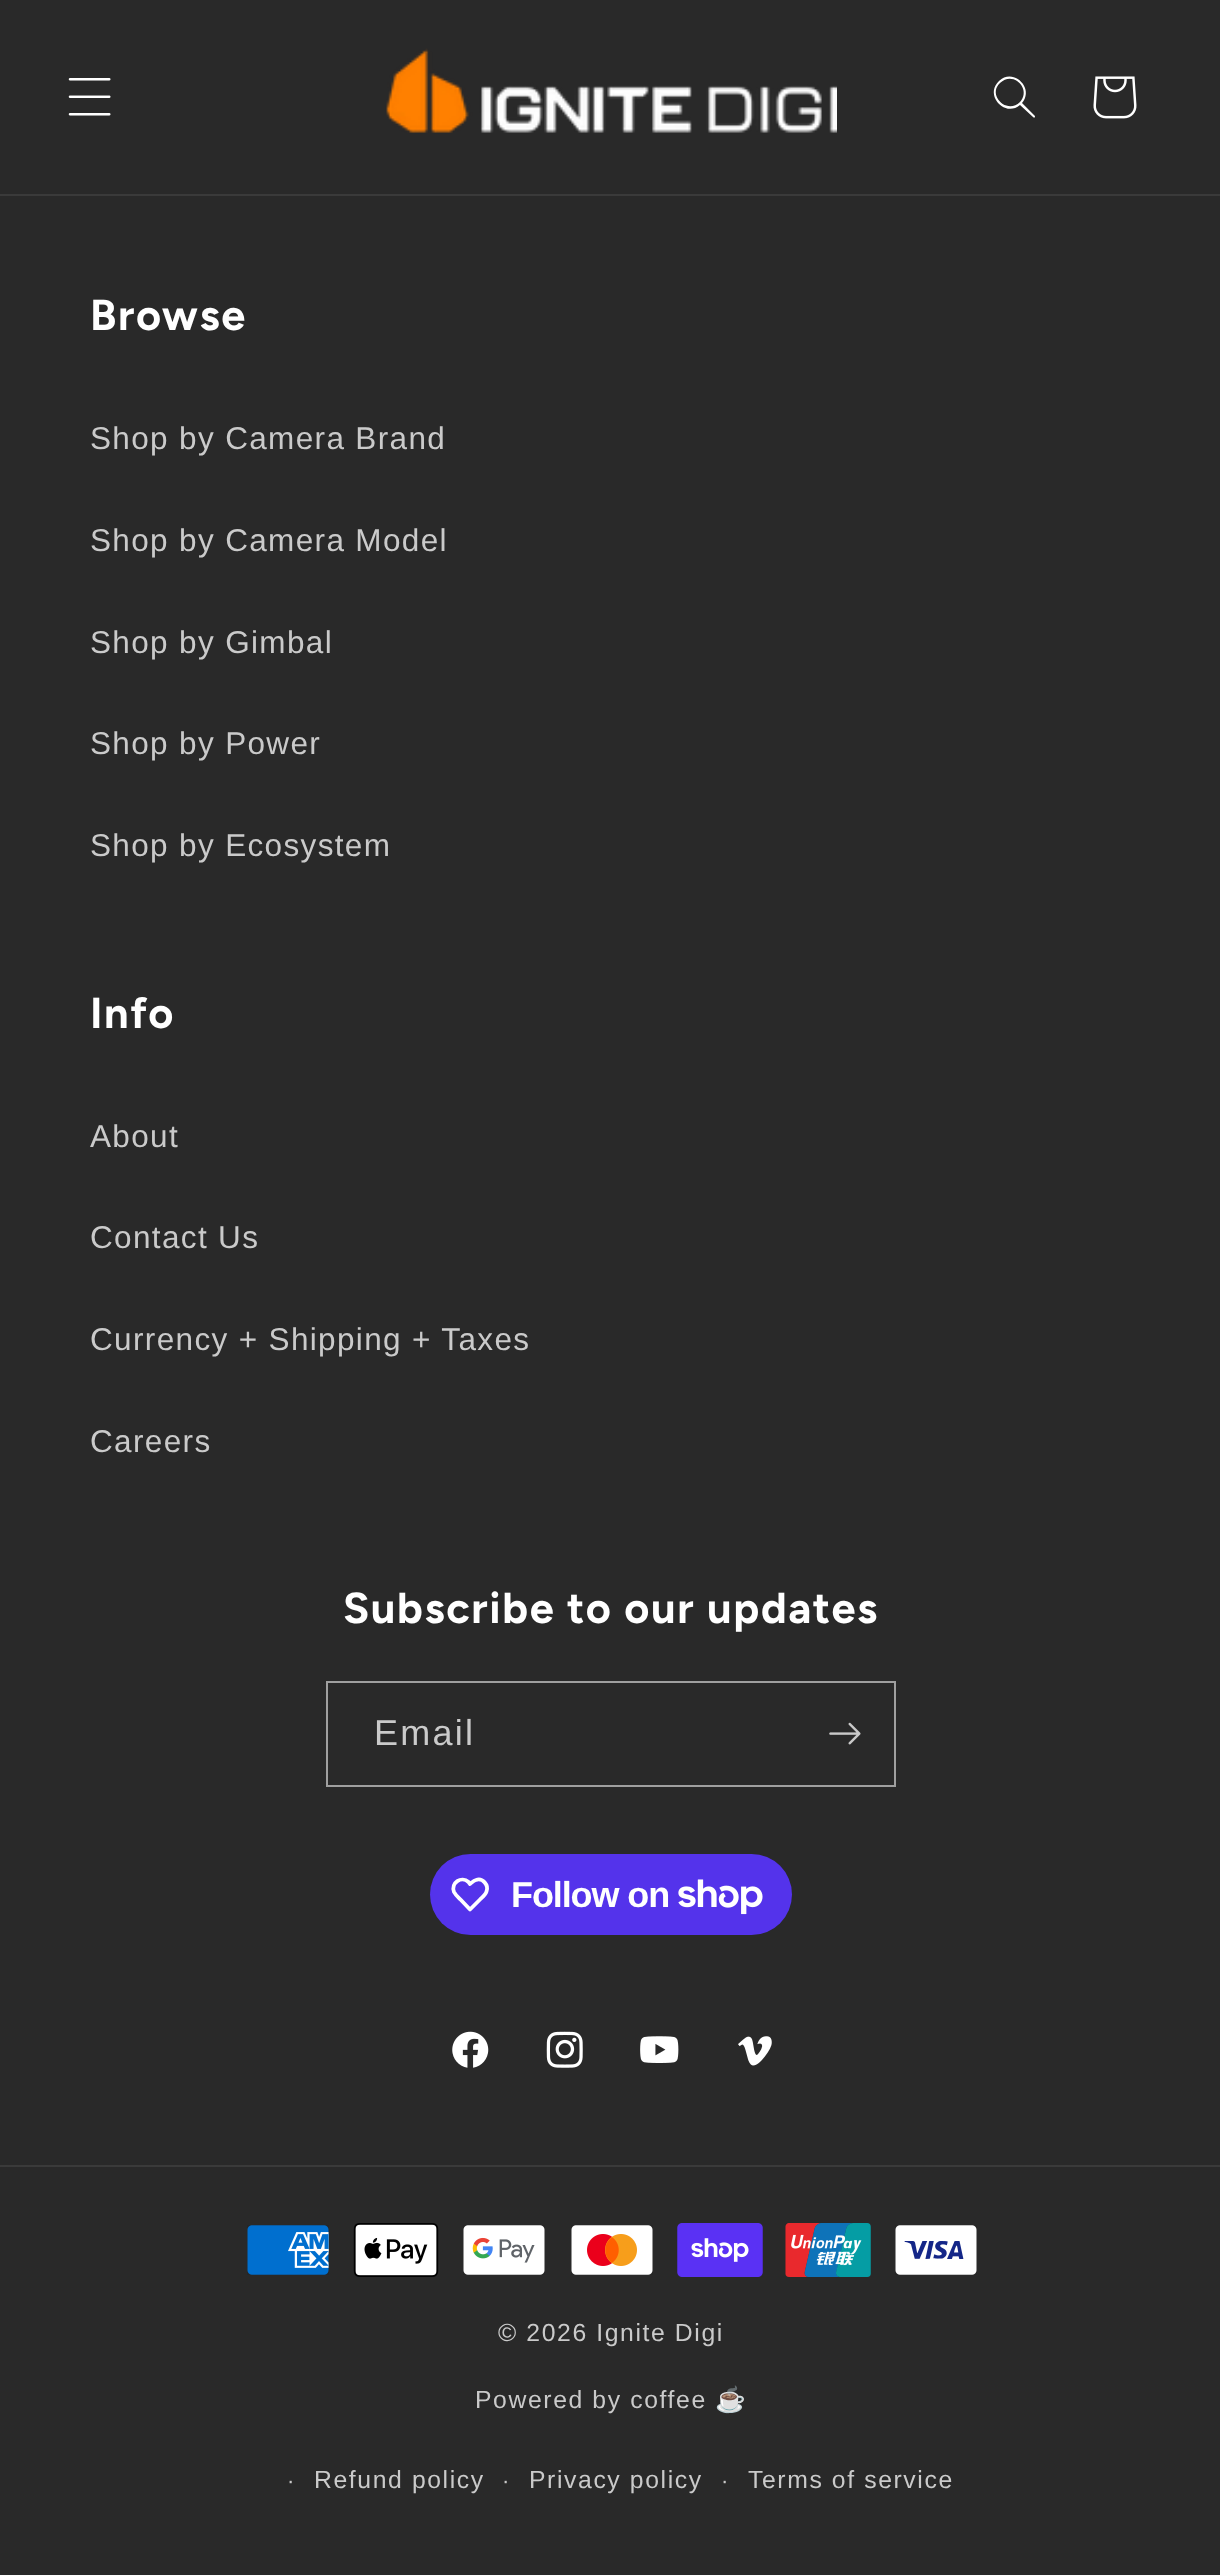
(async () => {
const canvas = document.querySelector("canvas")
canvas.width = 1220
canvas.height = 2575
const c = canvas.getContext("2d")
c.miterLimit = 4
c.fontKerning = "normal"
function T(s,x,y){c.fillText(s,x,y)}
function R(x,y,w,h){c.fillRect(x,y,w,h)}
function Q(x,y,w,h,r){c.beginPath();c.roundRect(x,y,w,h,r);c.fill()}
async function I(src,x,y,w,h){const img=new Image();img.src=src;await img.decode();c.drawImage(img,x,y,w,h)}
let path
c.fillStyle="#292929"
R(0,0,1220,2575)
c.fillStyle="#3a3a3a"
R(0,194,1220,2)
await I("1.png",68,78,43,38)
await I("2.png",386,48,451,85)
c.fillStyle="#fff"
path = new Path2D("M1020 102c-13 13-33-7-20-19c13-13 32 6 20 19m0 3c-15 13-36-10-21-24c14-14 36 7 23 22l13 13c0 2-1 2-2 1z")
c.fill(path,"evenodd")
await I("3.png",1093,76,44,43)
c.letterSpacing="1.6px"
c.font="bold 43.25px Figtree"
T("Browse",90,330)
c.letterSpacing="1.35px"
c.font="31.5px Liberation Sans"
c.fillStyle="#cacaca"
T("Shop by Camera Brand",90,449)
T("Shop by Camera Model",90,551)
T("Shop by Gimbal",90,653)
T("Shop by Power",90,754)
T("Shop by Ecosystem",90,856)
c.letterSpacing="1.6px"
c.font="bold 43.25px Figtree"
c.fillStyle="#fff"
T("Info",90,1028)
c.letterSpacing="1.35px"
c.font="31.5px Liberation Sans"
c.fillStyle="#cacaca"
T("About",90,1147)
T("Contact Us",90,1248)
T("Currency + Shipping + Taxes",90,1350)
T("Careers",90,1452)
c.letterSpacing="1.6px"
c.font="bold 43.25px Figtree"
c.fillStyle="#fff"
T("Subscribe to our updates",343,1623)
c.strokeStyle="#9f9f9f"
c.lineWidth=2
c.strokeRect(327,1682,568,104)
c.letterSpacing="2.25px"
c.font="36px Liberation Sans"
c.fillStyle="#cacaca"
T("Email",374,1745)
await I("4.png",829,1722,32,23)
c.fillStyle="#5433eb"
Q(430,1854,362,81,40.5)
path = new Path2D("M468.5 1882l1.5 2c2-1.5 3.5-3.5 6-4c6.5-2.5 13 5 10.5 11.5c-1 3.5-4.5 6-6.5 8l-10 10l-9.5-10c-2-2-5-4.5-6.5-7.5c-3.5-9 7.5-16.5 14.5-10z")
c.strokeStyle="#fff"
c.lineWidth=3.8
c.lineJoin="round"
c.stroke(path)
c.letterSpacing="-1.1px"
c.font="bold 36px Liberation Sans"
c.fillStyle="#fff"
T("Follow on",511,1907)
await I("5.png",678,1879,85,36)
await I("6.png",452,2031,37,37)
await I("7.png",546,2031,37,37)
await I("8.png",640,2036,39,27)
await I("9.png",738,2036,34,30)
c.fillStyle="#3a3a3a"
R(0,2165,1220,2)
await I("10.png",247,2225,82,50)
await I("11.png",353,2223,86,54)
await I("12.png",463,2225,82,50)
await I("13.png",571,2225,82,50)
await I("14.png",677,2223,86,54)
await I("15.png",785,2223,86,54)
await I("16.png",895,2225,82,50)
c.letterSpacing="1.6px"
c.font="24.75px Liberation Sans"
c.fillStyle="#cacaca"
T("© 2026 Ignite Digi",498,2341)
T("Powered by coffee",475,2408)
c.font="24.75px Noto Color Emoji"
T("☕",715,2408)
c.font="22px Liberation Sans"
T("·",287,2488)
c.font="24.75px Liberation Sans"
T("Refund policy",314,2488)
c.font="22px Liberation Sans"
T("·",502,2488)
c.font="24.75px Liberation Sans"
T("Privacy policy",529,2488)
c.font="22px Liberation Sans"
T("·",721,2488)
c.font="24.75px Liberation Sans"
T("Terms of service",748,2488)
})()
